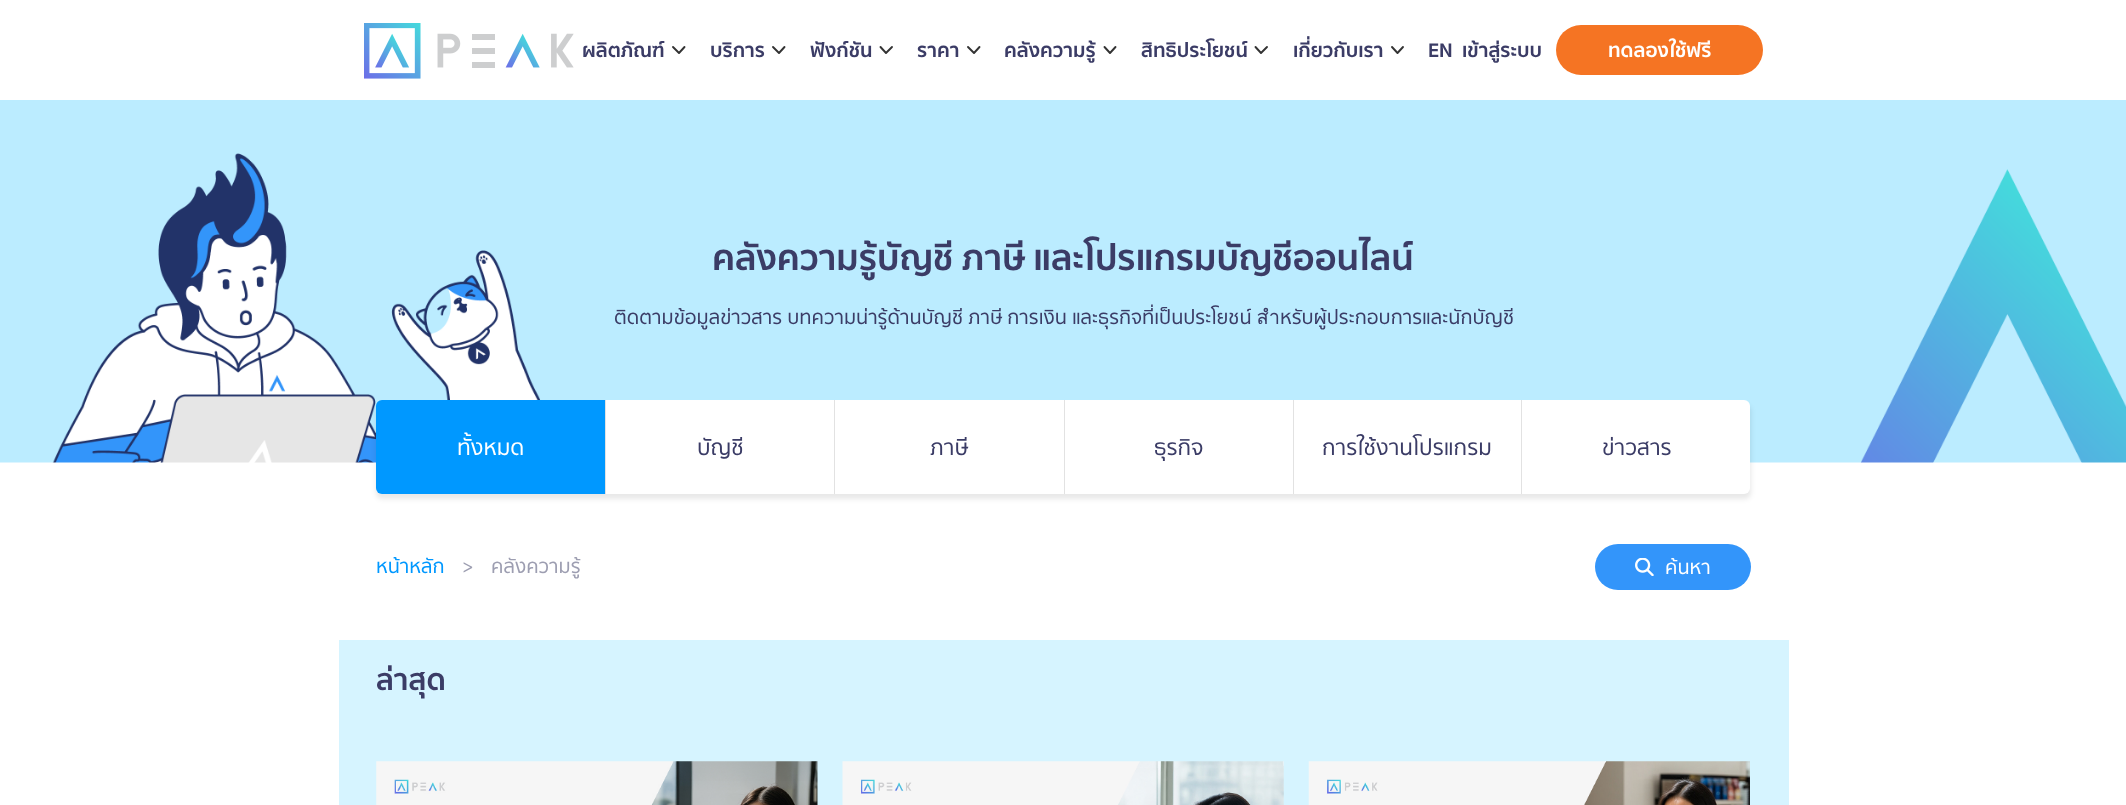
(async () => {
const canvas = document.querySelector("canvas")
canvas.width = 2126
canvas.height = 805
const c = canvas.getContext("2d")
c.miterLimit = 4
c.fontKerning = "normal"
function T(s,x,y){c.fillText(s,x,y)}
function R(x,y,w,h){c.fillRect(x,y,w,h)}
function Q(x,y,w,h,r){c.beginPath();c.roundRect(x,y,w,h,r);c.fill()}
async function I(src,x,y,w,h){const img=new Image();img.src=src;await img.decode();c.drawImage(img,x,y,w,h)}
let path
c.fillStyle="#fff"
R(0,0,2126,805)
await I("1.png",364,23,210,56)
c.font="bold 20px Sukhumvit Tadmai"
c.fillStyle="#3b3c66"
T("ผลิตภัณฑ์",582,57)
path = new Path2D("M673 47l6 6l5.5-6")
c.strokeStyle="#333"
c.lineWidth=1.9
c.lineCap="round"
c.lineJoin="round"
c.stroke(path)
T("บริการ",710,57)
path = new Path2D("M773 47l6 6l5.5-6")
c.stroke(path)
T("ฟังก์ชัน",810,57)
path = new Path2D("M880.5 47l5.5 6l6-6")
c.stroke(path)
T("ราคา",917,57)
path = new Path2D("M968 47l6 6l5.5-6")
c.stroke(path)
T("คลังความรู้",1004,57)
path = new Path2D("M1104.5 47l5.5 6l5.5-6")
c.stroke(path)
T("สิทธิประโยชน์",1141,57)
path = new Path2D("M1255.5 47l5.5 6l6-6")
c.stroke(path)
T("เกี่ยวกับเรา",1293,57)
path = new Path2D("M1392 47l5.5 6l5.5-6")
c.stroke(path)
T("EN",1428,57)
T("เข้าสู่ระบบ",1462,57)
c.fillStyle="#f57423"
Q(1556,25,207,50,25)
c.fillStyle="#fff"
T("ทดลองใช้ฟรี",1608,57)
await I("2.png",0,100,2126,363)
c.font="bold 36px Sukhumvit Tadmai"
c.fillStyle="#3b3c66"
T("คลังความรู้บัญชี ภาษี และโปรแกรมบัญชีออนไลน์",712,270)
c.font="500 20px Sukhumvit Tadmai"
T("ติดตามข้อมูลข่าวสาร บทความน่ารู้ด้านบัญชี ภาษี การเงิน และธุรกิจที่เป็นประโยชน์ สำหรับผู้ประกอบการและนักบัญชี",614,324)
c.fillStyle="#00000017"
c.filter="blur(2.5px)"
c.beginPath()
c.roundRect(376,405,1375,94,6)
c.fill()
c.filter="none"
c.fillStyle="#0098ff"
c.beginPath()
c.roundRect(376,400,229,94,[6,0,0,6])
c.fill()
c.font="500 22.5px Sukhumvit Tadmai"
c.fillStyle="#fff"
T("ทั้งหมด",457,455)
R(606,400,228,94)
c.fillStyle="#e2e2e2"
R(605,400,1,94)
c.fillStyle="#3b3c66"
T("บัญชี",697,455)
c.fillStyle="#fff"
R(835,400,229,94)
c.fillStyle="#e2e2e2"
R(834,400,1,94)
c.fillStyle="#3b3c66"
T("ภาษี",930,455)
c.fillStyle="#fff"
R(1065,400,228,94)
c.fillStyle="#e2e2e2"
R(1064,400,1,94)
c.fillStyle="#3b3c66"
T("ธุรกิจ",1154,455)
c.fillStyle="#fff"
R(1294,400,227,94)
c.fillStyle="#e2e2e2"
R(1293,400,1,94)
c.fillStyle="#3b3c66"
T("การใช้งานโปรแกรม",1322,455)
c.fillStyle="#fff"
c.beginPath()
c.roundRect(1521,400,229,94,[0,6,6,0])
c.fill()
c.fillStyle="#e2e2e2"
R(1521,400,1,94)
c.fillStyle="#3b3c66"
T("ข่าวสาร",1602,455)
c.font="500 20px Sukhumvit Tadmai"
c.fillStyle="#0098ff"
T("หน้าหลัก",376,573)
c.fillStyle="#9d9eb1"
T(">",462,573)
T("คลังความรู้",491,573)
c.fillStyle="#3395fa"
Q(1595,544,156,46,23)
await I("3.png",1635,558,19,18)
c.fillStyle="#fff"
T("ค้นหา",1665,574)
c.fillStyle="#d6f4ff"
R(339,640,1450,165)
c.font="bold 30px Sukhumvit Tadmai"
c.fillStyle="#3b3c66"
T("ล่าสุด",376,690)
await I("4.png",376,761,442,44)
await I("5.png",842,761,442,44)
await I("6.png",1308,761,442,44)
})()
